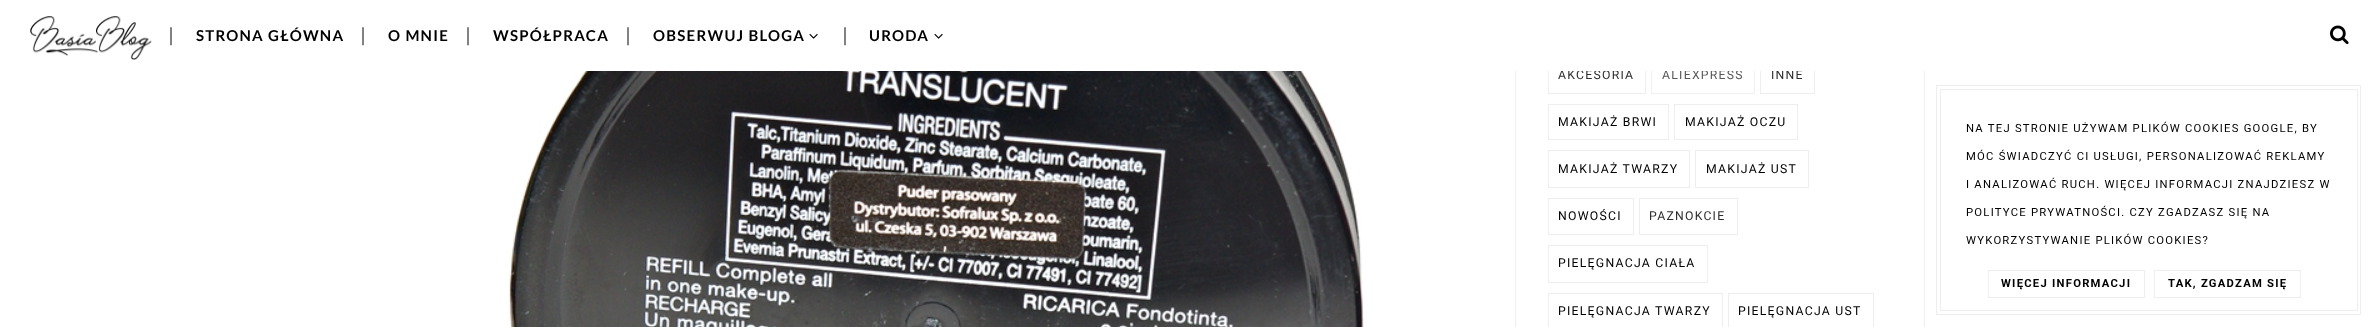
(async () => {
const canvas = document.querySelector("canvas")
canvas.width = 2373
canvas.height = 327
const c = canvas.getContext("2d")
c.miterLimit = 4
c.fontKerning = "normal"
function T(s,x,y){c.fillText(s,x,y)}
function R(x,y,w,h){c.fillRect(x,y,w,h)}
async function I(src,x,y,w,h){const img=new Image();img.src=src;await img.decode();c.drawImage(img,x,y,w,h)}
c.fillStyle="#fff"
R(0,0,2373,327)
c.strokeStyle="#eee"
c.strokeRect(1515.5,-.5,409,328)
c.strokeRect(1548.5,56.5,97,37)
c.letterSpacing="1.25px"
c.font="12.25px Roboto"
c.fillStyle="#2e2e2e"
T("AKCESORIA",1558,79)
c.strokeStyle="#f1f1f1"
c.strokeRect(1651.5,56.5,103,37)
c.fillStyle="#585858"
T("ALIEXPRESS",1662,79)
c.strokeStyle="#eee"
c.strokeRect(1760.5,56.5,54,37)
c.fillStyle="#2e2e2e"
T("INNE",1771,79)
c.fillStyle="#fff"
R(1515,0,410,71)
await I("1.png",30,16,122,44)
c.letterSpacing="0px"
c.font="20px Liberation Serif"
c.fillStyle="#000"
T("|",169,41)
c.letterSpacing="1.25px"
c.font="bold 15px Lato"
T("STRONA GŁÓWNA",196,41)
c.letterSpacing="0px"
c.font="20px Liberation Serif"
T("|",361,41)
c.letterSpacing="1.25px"
c.font="bold 15px Lato"
T("O MNIE",388,41)
c.letterSpacing="0px"
c.font="20px Liberation Serif"
T("|",466,41)
c.letterSpacing="1.25px"
c.font="bold 15px Lato"
T("WSPÓŁPRACA",493,41)
c.letterSpacing="0px"
c.font="20px Liberation Serif"
T("|",626,41)
c.letterSpacing="1.25px"
c.font="bold 15px Lato"
T("OBSERWUJ BLOGA",653,41)
await I("2.png",809,33,9,6)
c.letterSpacing="0px"
c.font="20px Liberation Serif"
T("|",843,41)
c.letterSpacing="1.25px"
c.font="bold 15px Lato"
T("URODA",869,41)
await I("2.png",934,33,9,6)
await I("3.png",2330,25,19,20)
await I("4.png",508,71,856,256)
c.strokeRect(1548.5,104.5,120,35)
c.font="12.25px Roboto"
T("MAKIJAŻ BRWI",1558,126)
c.strokeRect(1674.5,104.5,123,35)
T("MAKIJAŻ OCZU",1685,126)
c.strokeRect(1548.5,150.5,141,37)
T("MAKIJAŻ TWARZY",1558,173)
c.strokeRect(1695.5,150.5,113,37)
T("MAKIJAŻ UST",1706,173)
c.strokeRect(1548.5,198.5,85,36)
T("NOWOŚCI",1558,220)
c.strokeRect(1639.5,198.5,98,36)
c.fillStyle="#2e2e2e"
T("PAZNOKCIE",1649,220)
c.strokeRect(1548.5,245.5,159,37)
c.fillStyle="#000"
T("PIELĘGNACJA CIAŁA",1558,267)
c.strokeRect(1548.5,293.5,174,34)
T("PIELĘGNACJA TWARZY",1558,315)
c.strokeRect(1728.5,293.5,145,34)
T("PIELĘGNACJA UST",1738,315)
c.strokeRect(1936.5,85.5,424,229)
c.strokeRect(1940.5,89.5,417,221)
c.font="11.25px Roboto"
T("NA TEJ STRONIE UŻYWAM PLIKÓW COOKIES GOOGLE, BY",1966,132)
T("MÓC ŚWIADCZYĆ CI USŁUGI, PERSONALIZOWAĆ REKLAMY",1966,160)
T("I ANALIZOWAĆ RUCH. WIĘCEJ INFORMACJI ZNAJDZIESZ W",1966,188)
T("POLITYCE PRYWATNOŚCI. CZY ZGADZASZ SIĘ NA",1966,216)
T("WYKORZYSTYWANIE PLIKÓW COOKIES?",1966,244)
c.strokeRect(1988.5,270.5,156,27)
c.font="bold 11.25px Roboto"
T("WIĘCEJ INFORMACJI",2001,287)
c.strokeRect(2154.5,270.5,146,27)
T("TAK, ZGADZAM SIĘ",2168,287)
})()
